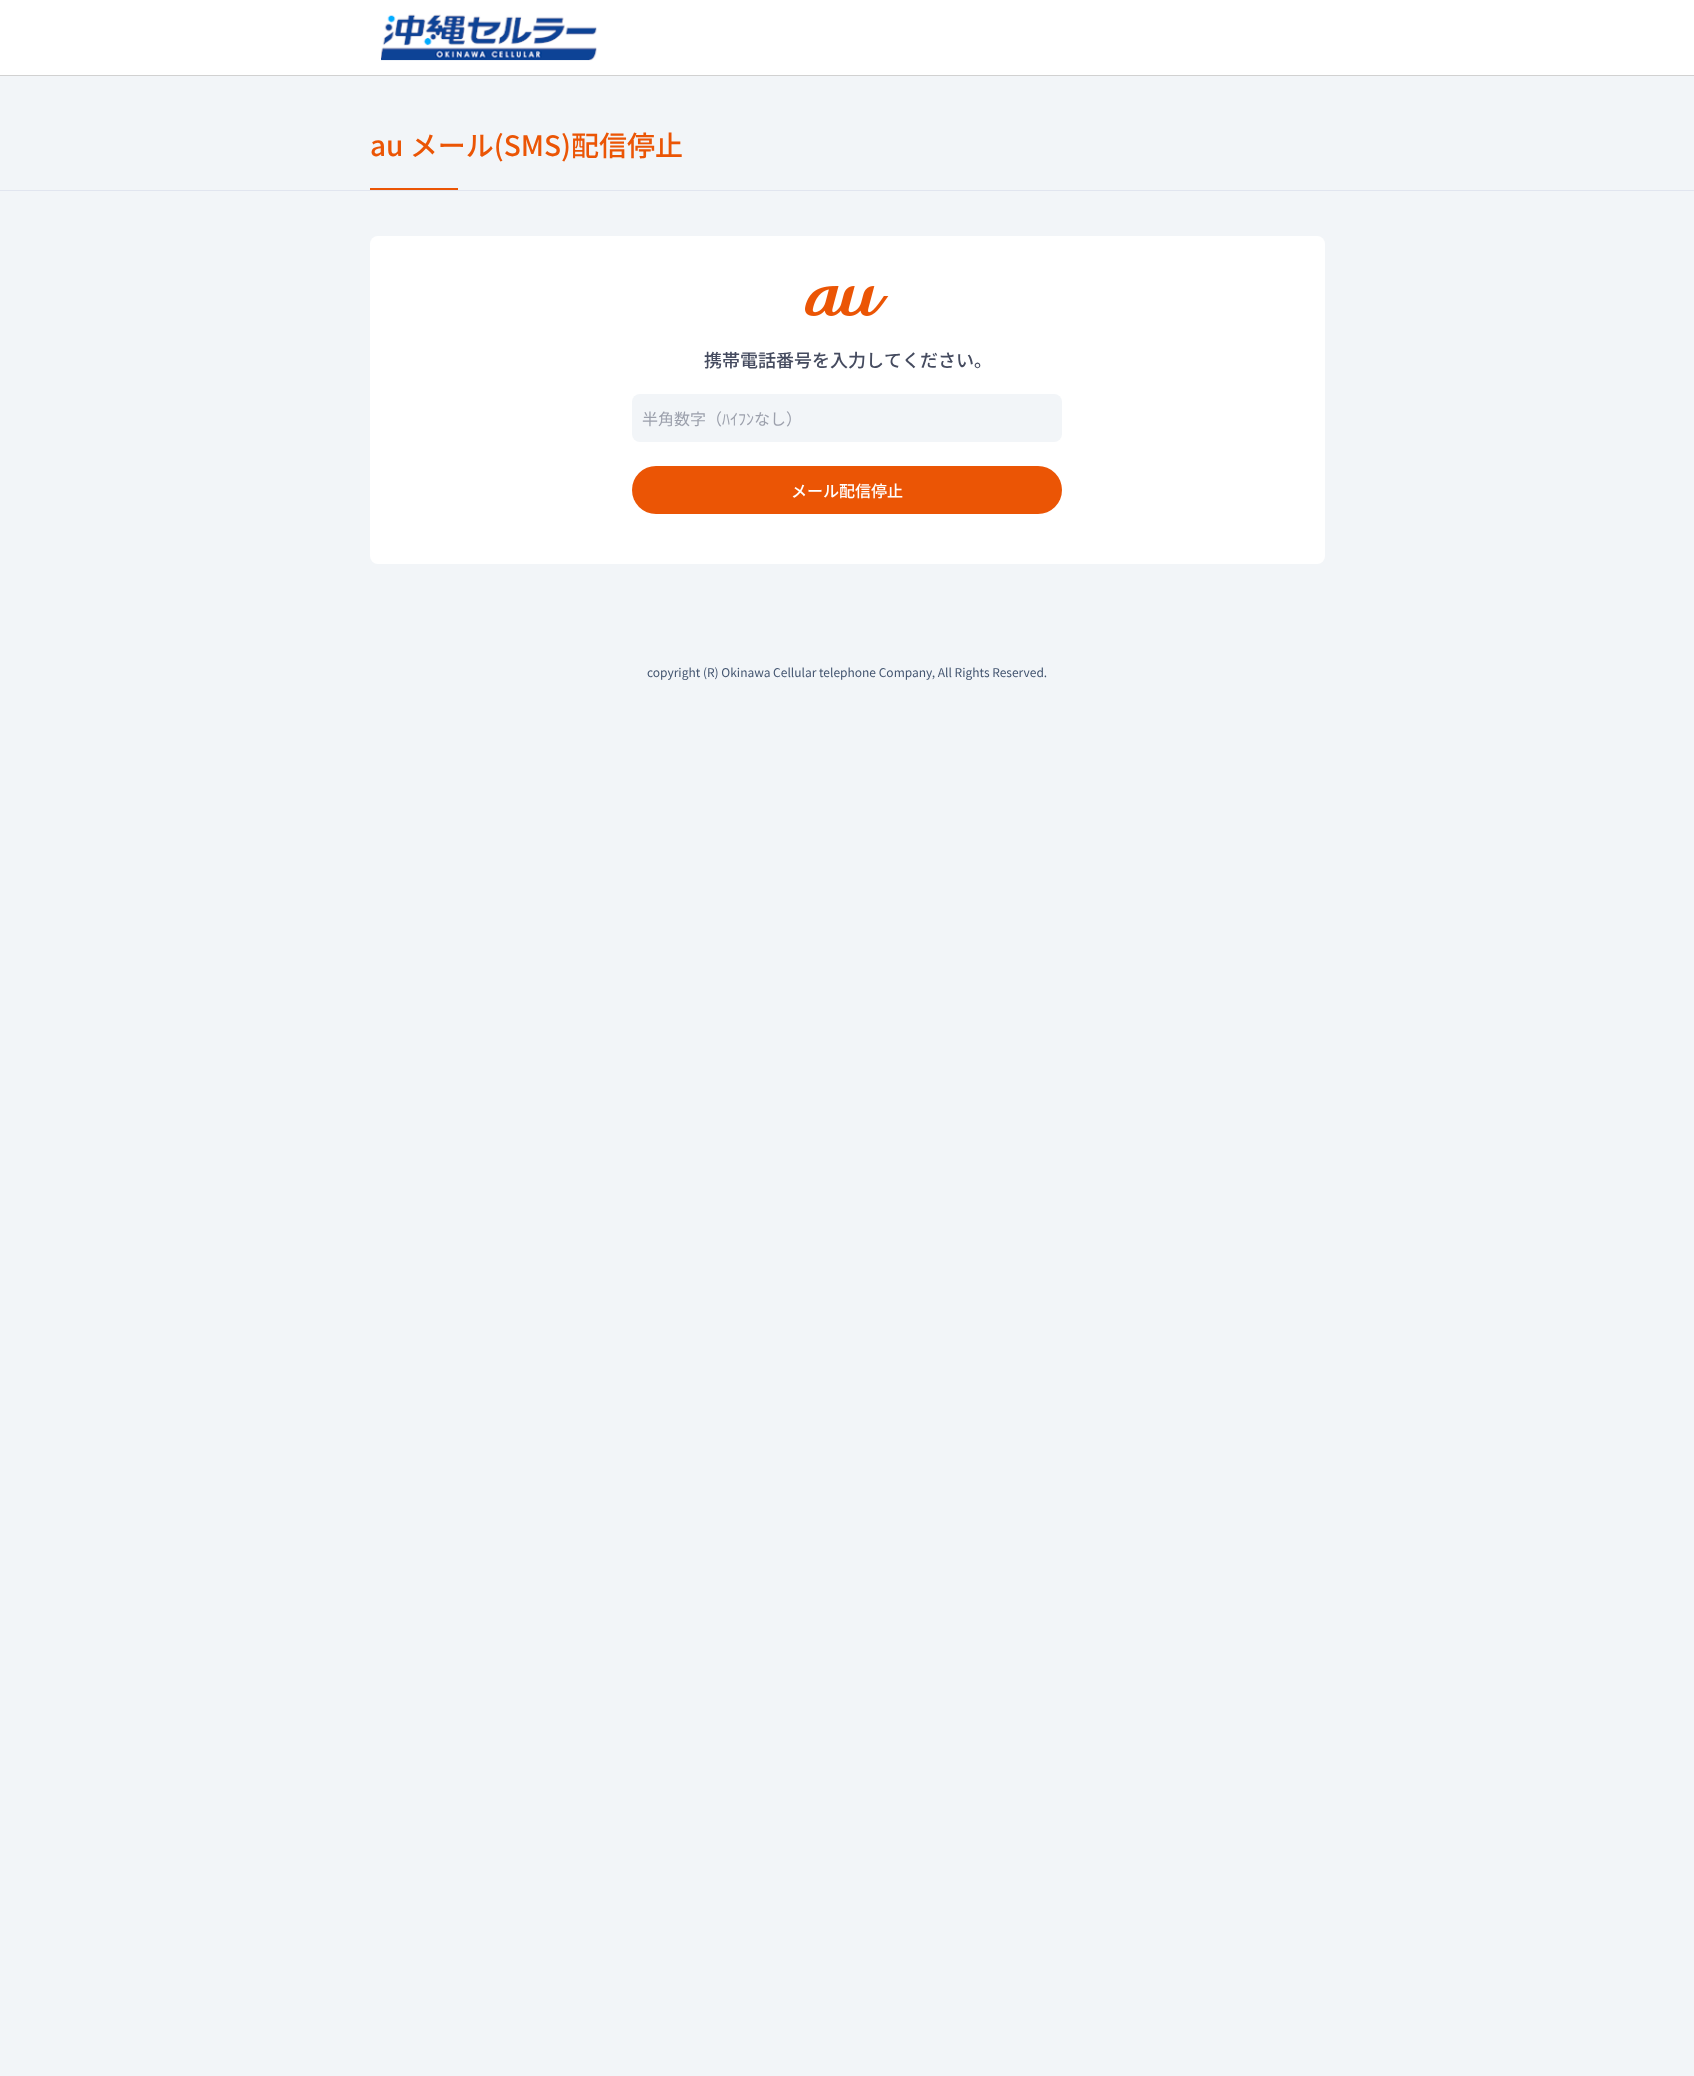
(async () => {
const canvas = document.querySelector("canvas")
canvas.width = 1694
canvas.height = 2076
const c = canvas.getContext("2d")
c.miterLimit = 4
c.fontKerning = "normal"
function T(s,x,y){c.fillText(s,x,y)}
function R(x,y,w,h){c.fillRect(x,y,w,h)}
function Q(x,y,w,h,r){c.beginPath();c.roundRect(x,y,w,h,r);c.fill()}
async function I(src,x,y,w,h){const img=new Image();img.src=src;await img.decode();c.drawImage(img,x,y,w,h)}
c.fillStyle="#f2f5f8"
R(0,0,1694,2076)
c.fillStyle="#fff"
R(0,0,1694,75)
c.fillStyle="#d1d1d1"
R(0,75,1694,1)
await I("1.png",381,14,216,47)
c.fillStyle="#e1e5ef"
R(0,190,1694,1)
c.font="500 28px Noto Sans JP"
c.fillStyle="#eb5505"
T("au メール(SMS)配信停止",370,156)
R(370,188,88,2)
c.fillStyle="#fff"
Q(370,236,955,328,8)
await I("2.png",805,286,84,30)
c.font="500 18px Noto Sans JP"
c.fillStyle="#454b5f"
T("携帯電話番号を入力してください。",704,367)
c.fillStyle="#f2f5f8"
Q(632,394,430,48,8)
c.font="16px Noto Sans JP"
c.fillStyle="#9ca0ac"
T("半角数字（ﾊｲﾌﾝなし）",642,425)
c.fillStyle="#eb5505"
Q(632,466,430,48,24)
c.font="500 16px Noto Sans JP"
c.fillStyle="#fff"
T("メール配信停止",791,497)
c.font="12px Noto Sans JP"
c.fillStyle="#42546f"
T("copyright (R) Okinawa Cellular telephone Company, All Rights Reserved.",647,677)
})()
